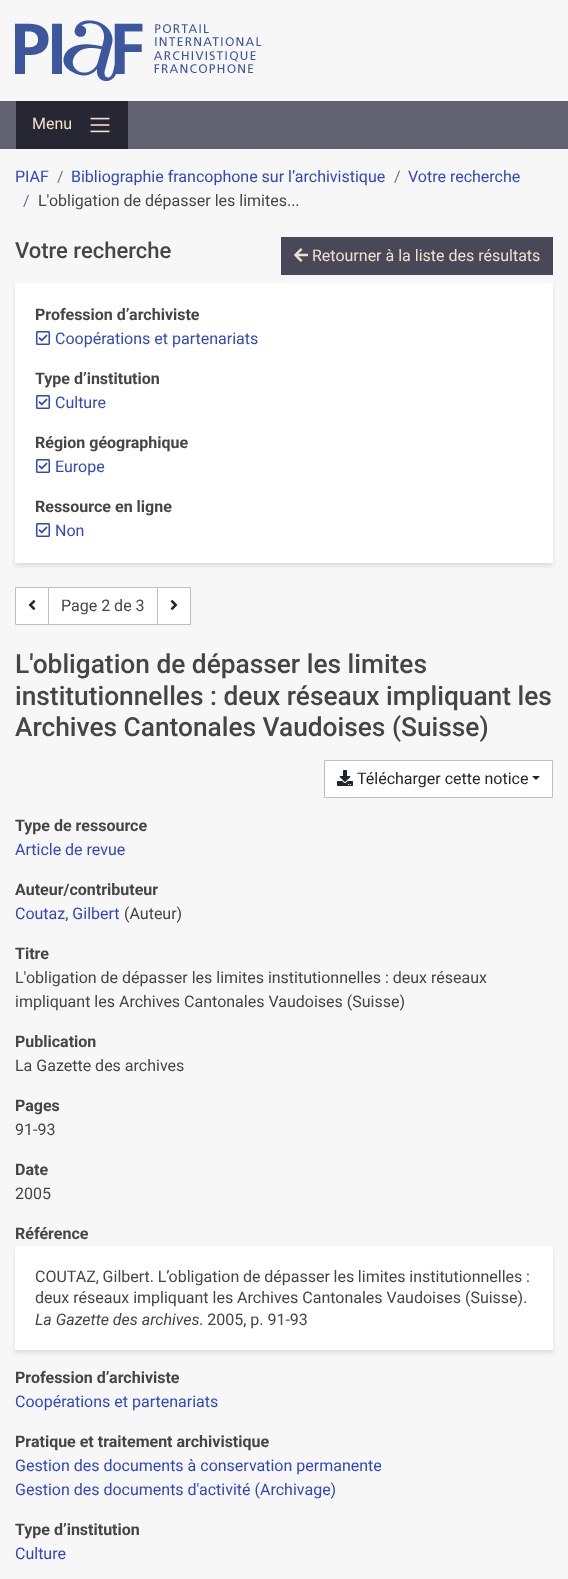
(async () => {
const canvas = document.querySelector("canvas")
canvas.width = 568
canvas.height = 1579
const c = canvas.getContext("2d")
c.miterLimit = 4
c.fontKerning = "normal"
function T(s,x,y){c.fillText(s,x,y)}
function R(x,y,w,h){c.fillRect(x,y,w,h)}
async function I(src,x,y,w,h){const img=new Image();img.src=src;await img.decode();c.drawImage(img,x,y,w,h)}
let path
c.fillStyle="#f7f7f7"
R(0,0,568,1579)
await I("1.png",15,20,247,61)
c.fillStyle="#626272"
R(0,101,568,48)
c.fillStyle="#272733"
R(16,101,112,48)
c.font="16px Roboto"
c.fillStyle="#f2e1cb"
T("Menu",32,129)
await I("2.png",90,117,20,16)
c.fillStyle="#3048bf"
T("PIAF",15,182)
c.fillStyle="#6c757d"
T("/",57,182)
c.fillStyle="#3048bf"
T("Bibliographie francophone sur l’archivistique",71,182)
c.fillStyle="#6c757d"
T("/",394,182)
c.fillStyle="#3048bf"
T("Votre recherche",408,182)
c.fillStyle="#6c757d"
T("/",23,206)
c.fillStyle="#454545"
T("L'obligation de dépasser les limites...",38,206)
c.font="500 22px Roboto"
T("Votre recherche",15,258)
c.fillStyle="#484858"
R(281,237,272,38)
await I("3.png",294,248,14,14)
c.font="16px Roboto"
c.fillStyle="#f2e1cb"
T("Retourner à la liste des résultats",312,261)
c.fillStyle="#0000001a"
c.filter="blur(2px)"
c.beginPath()
c.rect(15,286,538,280)
c.fill()
c.filter="none"
c.fillStyle="#fff"
R(15,283,538,280)
c.font="bold 16px Roboto"
c.fillStyle="#454545"
T("Profession d’archiviste",35,320)
await I("4.png",36,331,14,14)
c.font="16px Roboto"
c.fillStyle="#3048bf"
T("Coopérations et partenariats",55,344)
c.font="bold 16px Roboto"
c.fillStyle="#454545"
T("Type d’institution",35,384)
await I("4.png",36,395,14,14)
c.font="16px Roboto"
c.fillStyle="#3048bf"
T("Culture",55,408)
c.font="bold 16px Roboto"
c.fillStyle="#454545"
T("Région géographique",35,448)
await I("4.png",36,459,14,14)
c.font="16px Roboto"
c.fillStyle="#3048bf"
T("Europe",55,472)
c.font="bold 16px Roboto"
c.fillStyle="#454545"
T("Ressource en ligne",35,512)
await I("4.png",36,523,14,14)
c.font="16px Roboto"
c.fillStyle="#3048bf"
T("Non",55,536)
c.fillStyle="#fff"
c.beginPath()
c.rect(15.5,587.5,33,37)
c.fill()
c.strokeStyle="#bfbfbf"
c.stroke()
await I("5.png",28,600,8,10)
c.beginPath()
c.rect(48.5,587.5,109,37)
c.fill()
c.stroke()
c.fillStyle="#454545"
T("Page 2 de 3",61,611)
c.fillStyle="#fff"
c.beginPath()
c.rect(157.5,587.5,33,37)
c.fill()
c.stroke()
await I("6.png",170,600,8,10)
c.font="500 26.3px Roboto"
c.fillStyle="#454545"
T("L'obligation de dépasser les limites",15,673)
T("institutionnelles : deux réseaux impliquant les",15,705)
T("Archives Cantonales Vaudoises (Suisse)",15,736)
c.fillStyle="#fff"
c.beginPath()
c.rect(324.5,760.5,228,37)
c.fill()
c.stroke()
await I("7.png",337,770,16,16)
c.font="16px Roboto"
c.fillStyle="#212529"
T("Télécharger cette notice",357,784)
path = new Path2D("M532 776h8l-4 4z")
c.fill(path)
c.font="bold 16px Roboto"
c.fillStyle="#454545"
T("Type de ressource",15,831)
c.font="16px Roboto"
c.fillStyle="#3048bf"
T("Article de revue",15,855)
c.font="bold 16px Roboto"
c.fillStyle="#454545"
T("Auteur/contributeur",15,895)
c.font="16px Roboto"
c.fillStyle="#3048bf"
T("Coutaz, Gilbert",15,919)
c.fillStyle="#454545"
T("(Auteur)",124,919)
c.font="bold 16px Roboto"
T("Titre",15,959)
c.font="16px Roboto"
T("L'obligation de dépasser les limites institutionnelles : deux réseaux",15,983)
T("impliquant les Archives Cantonales Vaudoises (Suisse)",15,1007)
c.font="bold 16px Roboto"
T("Publication",15,1047)
c.font="16px Roboto"
T("La Gazette des archives",15,1071)
c.font="bold 16px Roboto"
T("Pages",15,1111)
c.font="16px Roboto"
T("91-93",15,1135)
c.font="bold 16px Roboto"
T("Date",15,1175)
c.font="16px Roboto"
T("2005",15,1199)
c.font="bold 16px Roboto"
T("Référence",15,1239)
c.fillStyle="#0000001a"
c.filter="blur(2px)"
c.beginPath()
c.rect(15,1249,538,104)
c.fill()
c.filter="none"
c.fillStyle="#fff"
R(15,1246,538,104)
c.wordSpacing="-0.25px"
c.font="16px Roboto"
c.fillStyle="#454545"
T("COUTAZ, Gilbert. L’obligation de dépasser les limites institutionnelles",35,1282)
c.wordSpacing="0px"
T(":",526,1282)
T("deux réseaux impliquant les Archives Cantonales Vaudoises (Suisse).",35,1303)
c.font="italic 16px Roboto"
T("La Gazette des archives",35,1325)
c.font="16px Roboto"
T(". 2005, p. 91‑93",199,1325)
c.font="bold 16px Roboto"
T("Profession d’archiviste",15,1383)
c.font="16px Roboto"
c.fillStyle="#3048bf"
T("Coopérations et partenariats",15,1407)
c.font="bold 16px Roboto"
c.fillStyle="#454545"
T("Pratique et traitement archivistique",15,1447)
c.font="16px Roboto"
c.fillStyle="#3048bf"
T("Gestion des documents à conservation permanente",15,1471)
T("Gestion des documents d'activité (Archivage)",15,1495)
c.font="bold 16px Roboto"
c.fillStyle="#454545"
T("Type d’institution",15,1535)
c.font="16px Roboto"
c.fillStyle="#3048bf"
T("Culture",15,1559)
})()
